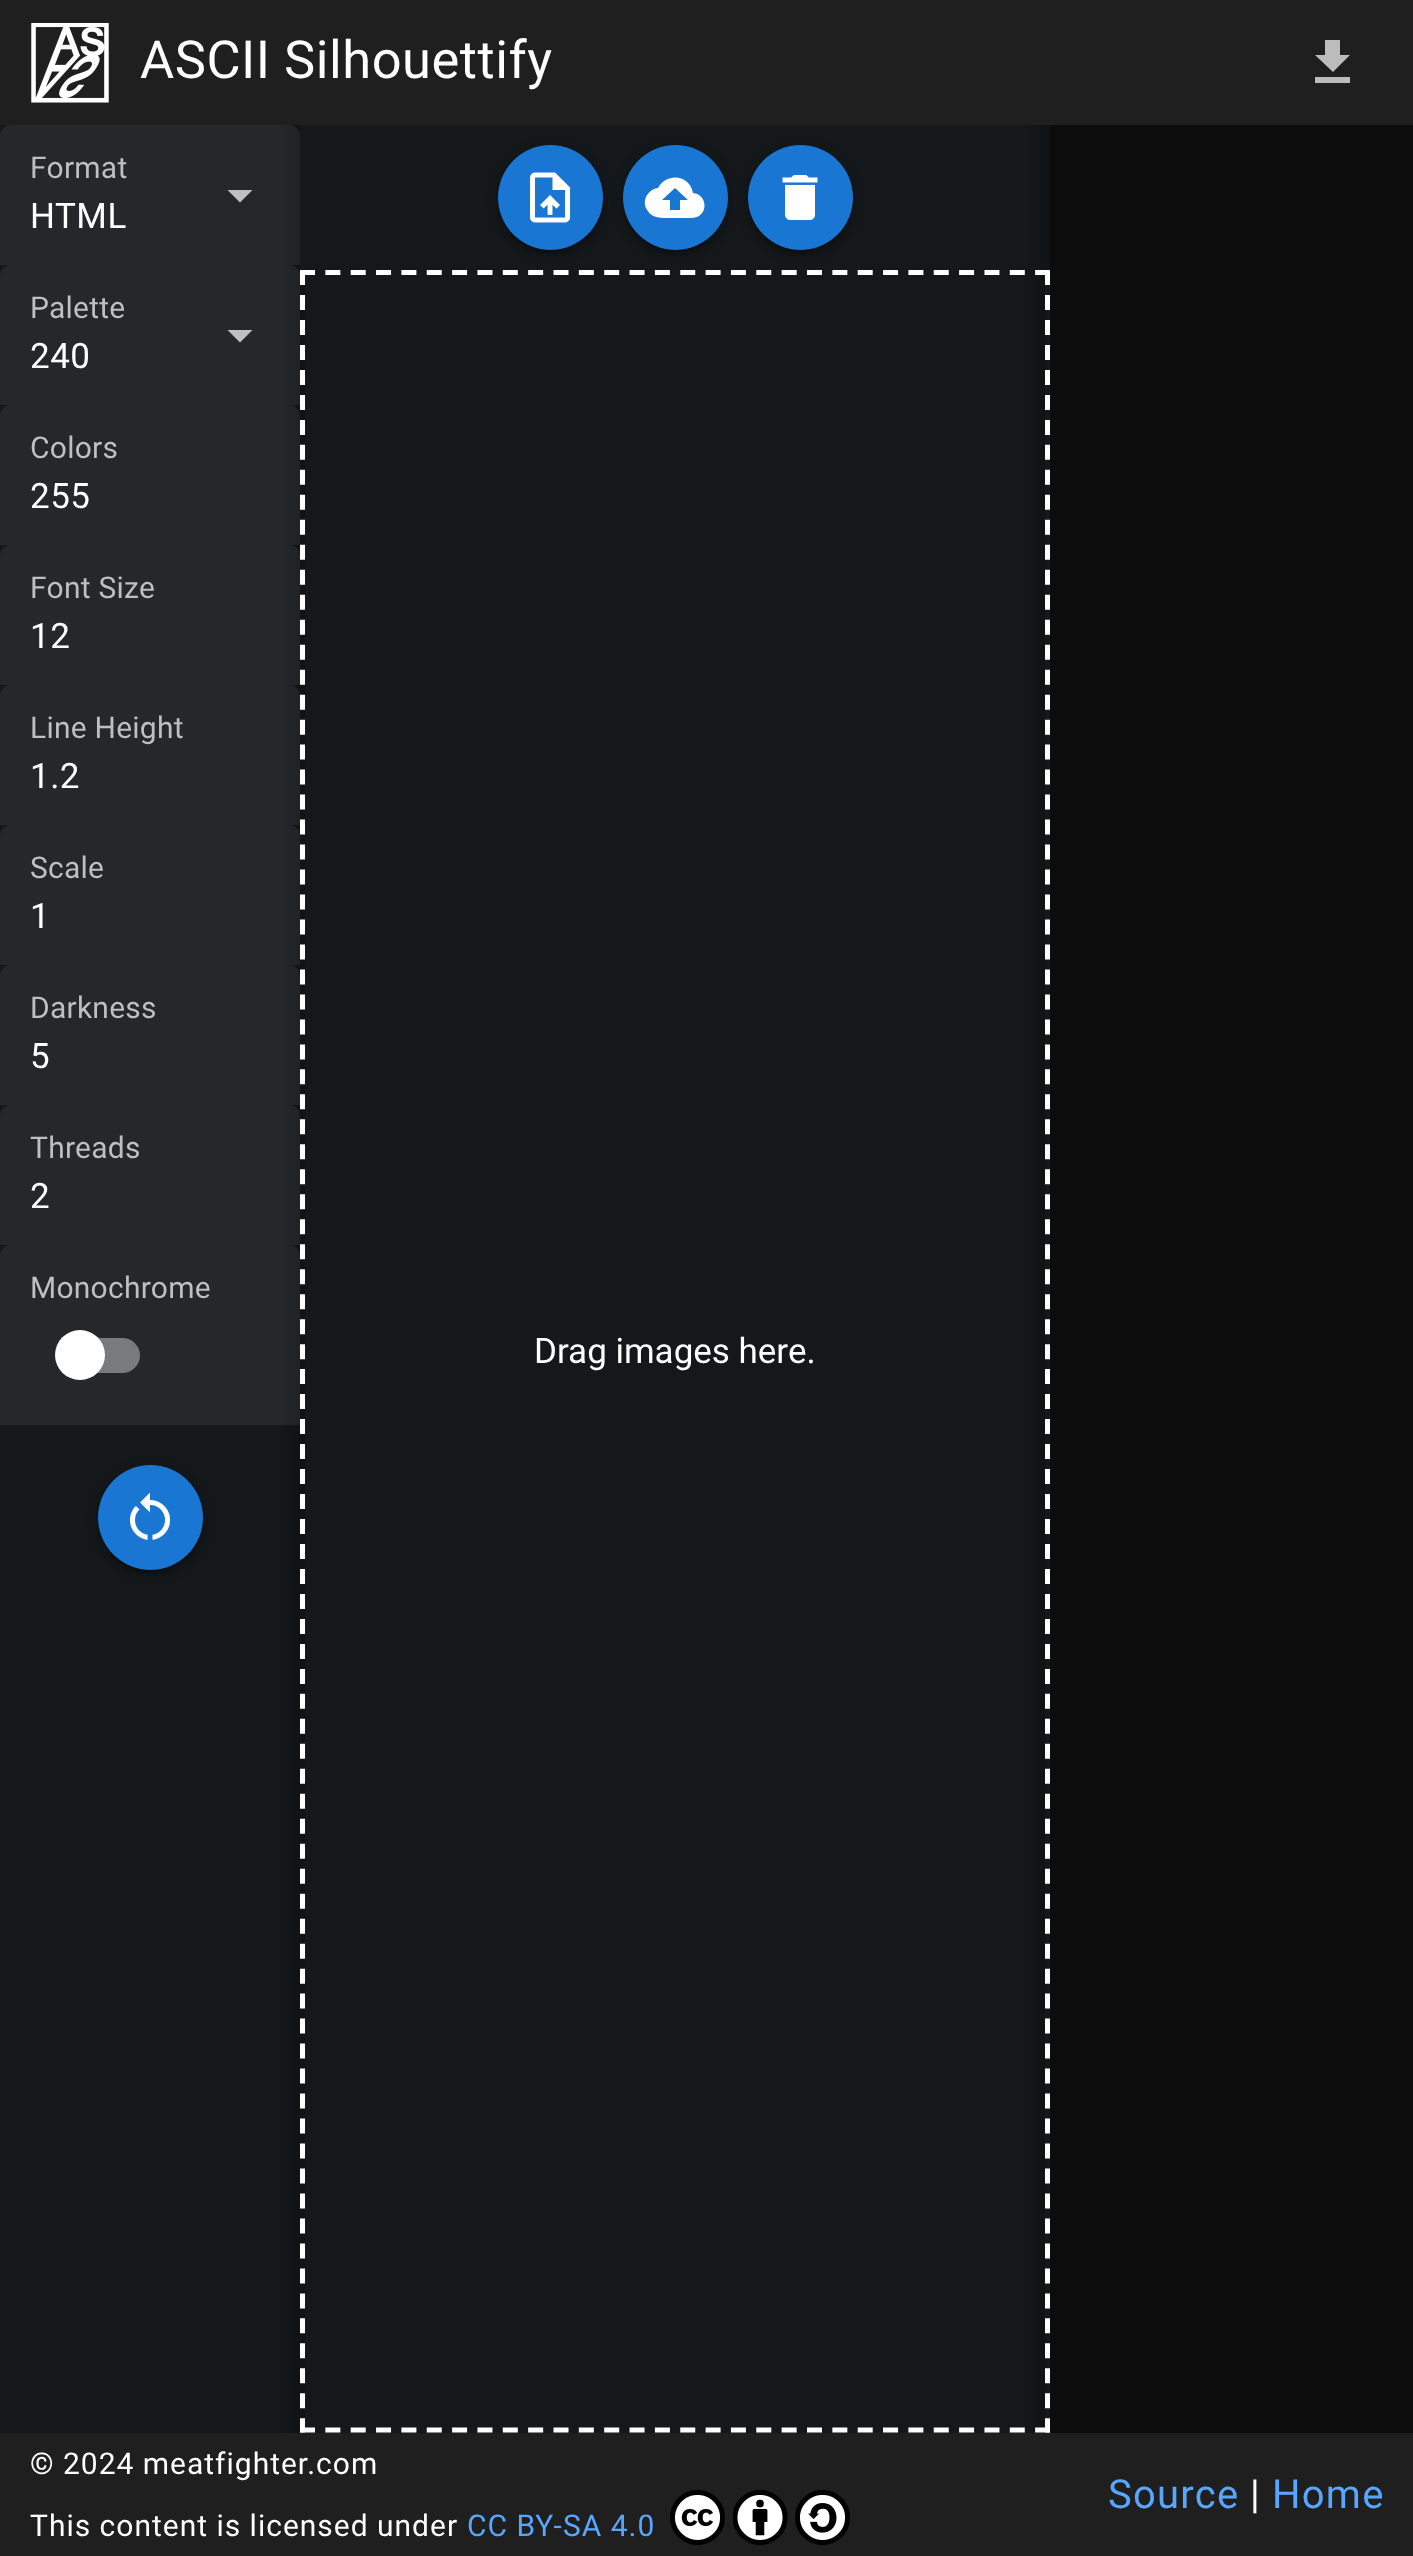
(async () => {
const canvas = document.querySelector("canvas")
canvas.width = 1413
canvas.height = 2556
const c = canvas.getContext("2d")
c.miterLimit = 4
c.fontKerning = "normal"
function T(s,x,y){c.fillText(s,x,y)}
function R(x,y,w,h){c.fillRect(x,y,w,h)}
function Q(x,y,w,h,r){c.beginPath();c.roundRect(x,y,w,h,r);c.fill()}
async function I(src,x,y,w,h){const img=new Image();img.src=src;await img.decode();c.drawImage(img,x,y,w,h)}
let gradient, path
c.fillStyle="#fff"
R(0,0,1413,2556)
c.fillStyle="#1f1f1f"
R(0,0,1413,125)
await I("1.png",31,23,78,80)
c.letterSpacing="0.5px"
c.font="52.5px Roboto"
c.fillStyle="#fff"
T("ASCII Silhouettify",140,78)
c.fillStyle="#bcbcbc"
path = new Path2D("M1315 83h35v-6h-35zm35-28h-10v-15h-15v15h-10l18 17z")
c.fill(path)
gradient = c.createLinearGradient(0,1279,300,1279)
gradient.addColorStop(0,"#15181b")
gradient.addColorStop(.93,"#15181b")
gradient.addColorStop(1,"#0f1316")
c.fillStyle = gradient
R(0,125,300,2308)
c.fillStyle="#ffffff12"
c.beginPath()
c.roundRect(0,125,300,140,[10,10,0,0])
c.fill()
c.letterSpacing="0.25px"
c.font="30px Roboto"
c.fillStyle="#bebfbf"
T("Format",30,178)
c.letterSpacing="0.5px"
c.font="35px Roboto"
c.fillStyle="#fff"
T("HTML",30,228)
c.fillStyle="#bebfbf"
path = new Path2D("M227.5 190h25l-12.5 12.5z")
c.fill(path)
c.fillStyle="#ffffff12"
c.beginPath()
c.roundRect(0,265,300,140,[10,10,0,0])
c.fill()
c.letterSpacing="0.25px"
c.font="30px Roboto"
c.fillStyle="#bebfbf"
T("Palette",30,318)
c.letterSpacing="0.5px"
c.font="35px Roboto"
c.fillStyle="#fff"
T("240",30,368)
c.fillStyle="#bebfbf"
path = new Path2D("M227.5 330h25l-12.5 12.5z")
c.fill(path)
c.fillStyle="#ffffff12"
c.beginPath()
c.roundRect(0,405,300,140,[10,10,0,0])
c.fill()
c.letterSpacing="0.25px"
c.font="30px Roboto"
c.fillStyle="#bebfbf"
T("Colors",30,458)
c.letterSpacing="0.5px"
c.font="35px Roboto"
c.fillStyle="#fff"
T("255",30,508)
c.fillStyle="#ffffff12"
c.beginPath()
c.roundRect(0,545,300,140,[10,10,0,0])
c.fill()
c.letterSpacing="0.25px"
c.font="30px Roboto"
c.fillStyle="#bebfbf"
T("Font Size",30,598)
c.letterSpacing="0.5px"
c.font="35px Roboto"
c.fillStyle="#fff"
T("12",30,648)
c.fillStyle="#ffffff12"
c.beginPath()
c.roundRect(0,685,300,140,[10,10,0,0])
c.fill()
c.letterSpacing="0.25px"
c.font="30px Roboto"
c.fillStyle="#bebfbf"
T("Line Height",30,738)
c.letterSpacing="0.5px"
c.font="35px Roboto"
c.fillStyle="#fff"
T("1.2",30,788)
c.fillStyle="#ffffff12"
c.beginPath()
c.roundRect(0,825,300,140,[10,10,0,0])
c.fill()
c.letterSpacing="0.25px"
c.font="30px Roboto"
c.fillStyle="#bebfbf"
T("Scale",30,878)
c.letterSpacing="0.5px"
c.font="35px Roboto"
c.fillStyle="#fff"
T("1",30,928)
c.fillStyle="#ffffff12"
c.beginPath()
c.roundRect(0,965,300,140,[10,10,0,0])
c.fill()
c.letterSpacing="0.25px"
c.font="30px Roboto"
c.fillStyle="#bebfbf"
T("Darkness",30,1018)
c.letterSpacing="0.5px"
c.font="35px Roboto"
c.fillStyle="#fff"
T("5",30,1068)
c.fillStyle="#ffffff12"
c.beginPath()
c.roundRect(0,1105,300,140,[10,10,0,0])
c.fill()
c.letterSpacing="0.25px"
c.font="30px Roboto"
c.fillStyle="#bebfbf"
T("Threads",30,1158)
c.letterSpacing="0.5px"
c.font="35px Roboto"
c.fillStyle="#fff"
T("2",30,1208)
c.fillStyle="#ffffff12"
c.beginPath()
c.roundRect(0,1245,300,180,[10,10,0,0])
c.fill()
c.letterSpacing="0.25px"
c.font="30px Roboto"
c.fillStyle="#bebfbf"
T("Monochrome",30,1298)
c.fillStyle="#787a7c"
Q(60,1338,80,35,17.5)
c.fillStyle="#fff"
c.beginPath()
c.arc(80,1355,25,0,7)
c.fill()
c.fillStyle="#1976d2"
c.beginPath()
c.arc(150.5,1517.5,52.5,0,7)
c.fill()
c.save()
path = new Path2D("M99 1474h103v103h-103zm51.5-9c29 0 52.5 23.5 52.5 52.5c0 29-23.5 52.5-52.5 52.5c-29 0-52.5-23.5-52.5-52.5c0-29 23.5-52.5 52.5-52.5z")
c.clip(path,"evenodd")
c.fillStyle="#0000001f"
c.filter="blur(1px)"
c.beginPath()
c.roundRect(103,1478,95,95,47.5)
c.fill()
c.filter="none"
c.restore()
c.save()
path = new Path2D("M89 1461h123v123h-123zm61.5 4c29 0 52.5 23.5 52.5 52.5c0 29-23.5 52.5-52.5 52.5c-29 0-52.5-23.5-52.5-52.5c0-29 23.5-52.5 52.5-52.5z")
c.clip(path,"evenodd")
c.fillStyle="#00000024"
c.filter="blur(2.5px)"
c.beginPath()
c.roundRect(98,1470,105,105,52.5)
c.fill()
c.filter="none"
c.restore()
c.save()
path = new Path2D("M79 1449h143v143h-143zm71.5 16c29 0 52.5 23.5 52.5 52.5c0 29-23.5 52.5-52.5 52.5c-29 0-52.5-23.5-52.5-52.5c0-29 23.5-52.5 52.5-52.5z")
c.clip(path,"evenodd")
c.fillStyle="#00000033"
c.filter="blur(6px)"
c.beginPath()
c.roundRect(98,1468,105,105,52.5)
c.fill()
c.filter="none"
c.restore()
await I("2.png",130,1492,41,48)
gradient = c.createLinearGradient(300,1279,1050,1279)
gradient.addColorStop(0,"#15181b")
gradient.addColorStop(.97,"#15181b")
gradient.addColorStop(1,"#0f1316")
c.fillStyle = gradient
R(300,125,750,145)
c.fillStyle="#1976d2"
c.beginPath()
c.arc(550.5,197.5,52.5,0,7)
c.fill()
c.save()
path = new Path2D("M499 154h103v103h-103zm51.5-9c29 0 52.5 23.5 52.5 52.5c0 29-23.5 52.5-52.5 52.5c-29 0-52.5-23.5-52.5-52.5c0-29 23.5-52.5 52.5-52.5z")
c.clip(path,"evenodd")
c.fillStyle="#0000001f"
c.filter="blur(1px)"
c.beginPath()
c.roundRect(503,158,95,95,47.5)
c.fill()
c.filter="none"
c.restore()
c.save()
path = new Path2D("M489 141h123v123h-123zm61.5 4c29 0 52.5 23.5 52.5 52.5c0 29-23.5 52.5-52.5 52.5c-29 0-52.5-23.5-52.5-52.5c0-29 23.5-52.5 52.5-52.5z")
c.clip(path,"evenodd")
c.fillStyle="#00000024"
c.filter="blur(2.5px)"
c.beginPath()
c.roundRect(498,150,105,105,52.5)
c.fill()
c.filter="none"
c.restore()
gradient = c.createLinearGradient(305,1351,1045,1351)
gradient.addColorStop(0,"#15181b")
gradient.addColorStop(.97,"#15181b")
gradient.addColorStop(1,"#0f1316")
c.fillStyle = gradient
R(305,270,740,2163)
path = new Path2D("M300 272.5h750")
c.strokeStyle="#fff"
c.lineWidth=5
c.setLineDash([15,10.35])
c.stroke(path)
c.save()
path = new Path2D("M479 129h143v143h-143zm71.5 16c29 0 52.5 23.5 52.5 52.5c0 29-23.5 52.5-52.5 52.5c-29 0-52.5-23.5-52.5-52.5c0-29 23.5-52.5 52.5-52.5z")
c.clip(path,"evenodd")
c.fillStyle="#00000033"
c.filter="blur(6px)"
c.beginPath()
c.roundRect(498,148,105,105,52.5)
c.fill()
c.filter="none"
c.restore()
await I("3.png",529,172,42,51)
c.fillStyle="#1976d2"
c.beginPath()
c.arc(675.5,197.5,52.5,0,7)
c.fill()
c.save()
path = new Path2D("M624 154h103v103h-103zm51.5-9c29 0 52.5 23.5 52.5 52.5c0 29-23.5 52.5-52.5 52.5c-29 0-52.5-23.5-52.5-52.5c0-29 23.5-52.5 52.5-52.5z")
c.clip(path,"evenodd")
c.fillStyle="#0000001f"
c.filter="blur(1px)"
c.beginPath()
c.roundRect(628,158,95,95,47.5)
c.fill()
c.filter="none"
c.restore()
c.save()
path = new Path2D("M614 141h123v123h-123zm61.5 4c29 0 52.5 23.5 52.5 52.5c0 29-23.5 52.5-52.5 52.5c-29 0-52.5-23.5-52.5-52.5c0-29 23.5-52.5 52.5-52.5z")
c.clip(path,"evenodd")
c.fillStyle="#00000024"
c.filter="blur(2.5px)"
c.beginPath()
c.roundRect(623,150,105,105,52.5)
c.fill()
c.filter="none"
c.restore()
c.save()
path = new Path2D("M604 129h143v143h-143zm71.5 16c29 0 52.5 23.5 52.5 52.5c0 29-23.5 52.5-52.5 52.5c-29 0-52.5-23.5-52.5-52.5c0-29 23.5-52.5 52.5-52.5z")
c.clip(path,"evenodd")
c.fillStyle="#00000033"
c.filter="blur(6px)"
c.beginPath()
c.roundRect(623,148,105,105,52.5)
c.fill()
c.filter="none"
c.restore()
c.fillStyle="#fff"
path = new Path2D("M680 200h8l-13-12l-13 12h8v10h10zm13-7c13 1 16 19 4 24c-3 1-7 1-10 1h-16c-10 0-20 1-25-10c-4-9 3-19 12-20c9-16 32-13 35 5z")
c.fill(path)
c.fillStyle="#1976d2"
c.beginPath()
c.arc(800.5,197.5,52.5,0,7)
c.fill()
c.save()
path = new Path2D("M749 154h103v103h-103zm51.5-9c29 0 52.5 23.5 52.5 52.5c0 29-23.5 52.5-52.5 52.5c-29 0-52.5-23.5-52.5-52.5c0-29 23.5-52.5 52.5-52.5z")
c.clip(path,"evenodd")
c.fillStyle="#0000001f"
c.filter="blur(1px)"
c.beginPath()
c.roundRect(753,158,95,95,47.5)
c.fill()
c.filter="none"
c.restore()
c.save()
path = new Path2D("M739 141h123v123h-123zm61.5 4c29 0 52.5 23.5 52.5 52.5c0 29-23.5 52.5-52.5 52.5c-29 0-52.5-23.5-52.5-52.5c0-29 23.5-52.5 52.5-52.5z")
c.clip(path,"evenodd")
c.fillStyle="#00000024"
c.filter="blur(2.5px)"
c.beginPath()
c.roundRect(748,150,105,105,52.5)
c.fill()
c.filter="none"
c.restore()
c.save()
path = new Path2D("M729 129h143v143h-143zm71.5 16c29 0 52.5 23.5 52.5 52.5c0 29-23.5 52.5-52.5 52.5c-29 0-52.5-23.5-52.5-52.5c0-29 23.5-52.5 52.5-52.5z")
c.clip(path,"evenodd")
c.fillStyle="#00000033"
c.filter="blur(6px)"
c.beginPath()
c.roundRect(748,148,105,105,52.5)
c.fill()
c.filter="none"
c.restore()
await I("4.png",782,175,36,45)
gradient = c.createLinearGradient(-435,1351,305,1351)
gradient.addColorStop(0,"#15181b")
gradient.addColorStop(.97,"#15181b")
gradient.addColorStop(1,"#0f1316")
c.fillStyle = gradient
R(300,285,5,2148)
gradient = c.createLinearGradient(1045,1351,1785,1351)
gradient.addColorStop(0,"#15181b")
gradient.addColorStop(.97,"#15181b")
gradient.addColorStop(1,"#0f1316")
c.fillStyle = gradient
R(1045,285,5,2148)
path = new Path2D("M1047.5 270v2162.5")
c.setLineDash([15,9.98])
c.stroke(path)
path = new Path2D("M300 2430h750")
c.setLineDash([15,10.35])
c.stroke(path)
path = new Path2D("M302.5 270v2162.5")
c.setLineDash([15,9.98])
c.stroke(path)
c.letterSpacing="0px"
c.font="35px Roboto"
c.fillStyle="#fff"
T("Drag images here.",534,1363)
c.fillStyle="#0c0c0c"
R(1050,125,363,2308)
c.fillStyle="#1f1f1f"
R(0,2433,1413,123)
c.letterSpacing="1px"
c.font="30px Roboto"
c.fillStyle="#fff"
T("© 2024 meatfighter.com",30,2474)
T("This content is licensed under",30,2536)
c.fillStyle="#58a6ff"
T("CC BY-SA 4.0",467,2536)
await I("5.png",670,2490,55,55)
await I("6.png",733,2490,55,55)
await I("7.png",795,2490,55,55)
c.letterSpacing="1.25px"
c.font="40px Roboto"
T("Source",1108,2508)
c.fillStyle="#fff"
T("|",1250,2508)
c.fillStyle="#58a6ff"
T("Home",1272,2508)
})()
